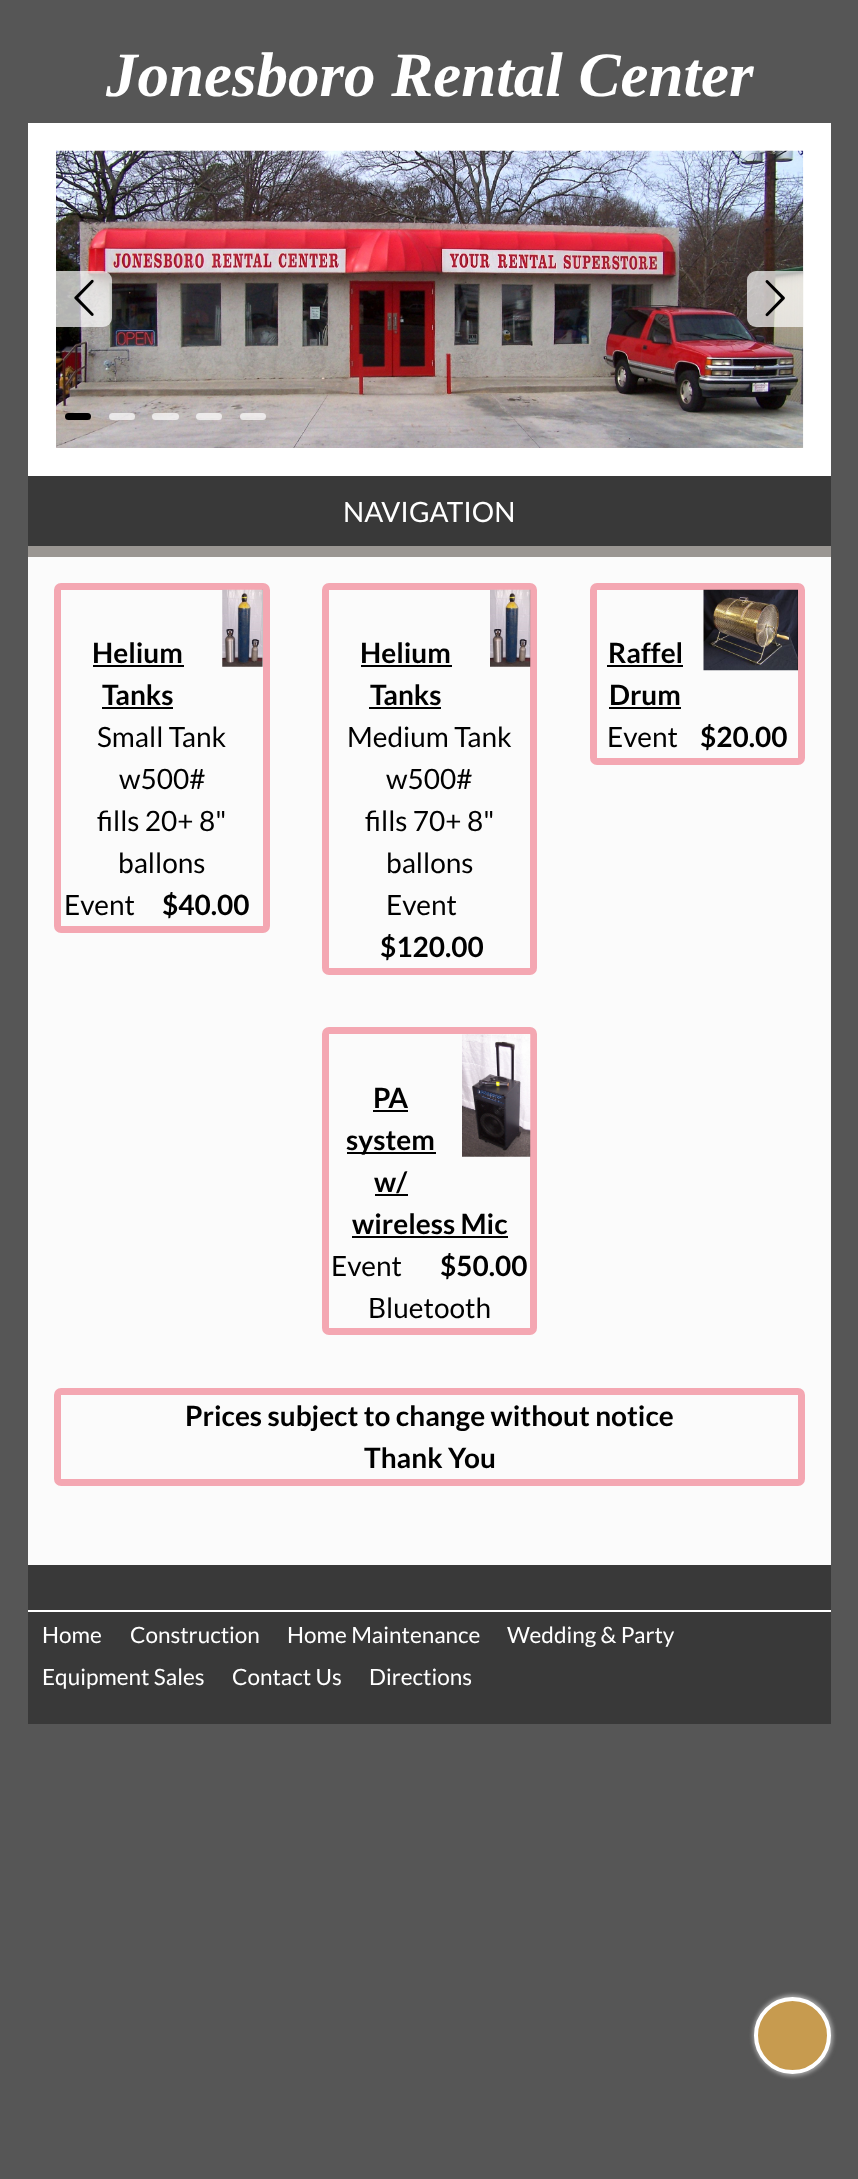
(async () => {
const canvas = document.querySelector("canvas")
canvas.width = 858
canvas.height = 2179
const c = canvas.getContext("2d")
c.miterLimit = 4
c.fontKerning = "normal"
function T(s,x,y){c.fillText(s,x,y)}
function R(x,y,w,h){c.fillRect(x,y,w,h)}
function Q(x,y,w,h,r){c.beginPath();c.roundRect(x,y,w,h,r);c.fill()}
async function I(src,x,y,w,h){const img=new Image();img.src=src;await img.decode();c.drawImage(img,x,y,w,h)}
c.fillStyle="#565656"
R(0,0,858,2179)
c.fillStyle="#9a9692"
R(28,546,803,11)
c.font="italic bold 63px Liberation Serif"
c.fillStyle="#fff"
T("Jonesboro Rental Center",106,96)
c.strokeStyle="#fff"
c.lineWidth=28
c.strokeRect(42,137,775,325)
await I("1.png",56,150,748,298)
c.fillStyle="#ffffffb3"
c.beginPath()
c.roundRect(56,271,56,56,[0,9,9,0])
c.fill()
await I("2.png",74,279,20,37)
c.beginPath()
c.roundRect(747,271,56,56,[9,0,0,9])
c.fill()
await I("3.png",765,280,20,37)
c.fillStyle="#000"
Q(65,413,26,7,3.5)
c.fillStyle="#ffffffb3"
Q(109,413,26,7,3.5)
Q(152,413,27,7,3.5)
Q(196,413,26,7,3.5)
Q(240,413,26,7,3.5)
c.fillStyle="#393939"
R(28,476,803,70)
c.font="28px Lato"
c.fillStyle="#fff"
T("NAVIGATION",343,522)
c.fillStyle="#fbfbfb"
R(28,557,803,1008)
c.beginPath()
c.roundRect(57.5,586.5,209,343,3.5)
c.strokeStyle="#f4a7b2"
c.lineWidth=7
c.stroke()
await I("4.png",222,589,41,78)
c.font="bold 28px Lato"
c.fillStyle="#000"
T("Helium",92,663)
R(93,665,91,2)
T("Tanks",102,705)
R(102,707,71,2)
c.font="28px Lato"
T("Small Tank",97,747)
T("w500#",119,789)
T("fills 20+ 8\"",97,831)
T("ballons",118,873)
T("Event",64,915)
c.font="bold 28px Lato"
T("$40.00",162,915)
c.beginPath()
c.roundRect(325.5,586.5,208,385,3.5)
c.stroke()
await I("5.png",490,589,41,78)
T("Helium",360,663)
R(361,665,91,2)
T("Tanks",370,705)
R(369,707,72,2)
c.font="28px Lato"
T("Medium Tank",347,747)
T("w500#",386,789)
T("fills 70+ 8\"",365,831)
T("ballons",386,873)
T("Event",386,915)
c.font="bold 28px Lato"
T("$120.00",380,957)
c.beginPath()
c.roundRect(593.5,586.5,208,175,3.5)
c.stroke()
await I("6.png",703,589,95,82)
T("Raffel",608,663)
R(607,665,76,2)
T("Drum",609,705)
R(609,707,72,2)
c.font="28px Lato"
T("Event",607,747)
c.font="bold 28px Lato"
T("$20.00",700,747)
c.beginPath()
c.roundRect(325.5,1030.5,208,301,3.5)
c.stroke()
await I("7.png",462,1034,69,123)
T("PA",373,1108)
R(373,1110,35,2)
R(347,1152,89,2)
T("system",346,1150)
T("w/",374,1192)
R(375,1194,33,2)
T("wireless Mic",352,1234)
R(352,1236,156,2)
c.font="28px Lato"
T("Event",331,1276)
c.font="bold 28px Lato"
T("$50.00",440,1276)
c.font="28px Lato"
T("Bluetooth",368,1318)
c.beginPath()
c.roundRect(57.5,1391.5,744,91,3.5)
c.stroke()
c.font="bold 28px Lato"
T("Prices subject to change without notice",185,1426)
T("Thank You",364,1468)
c.fillStyle="#393939"
R(28,1565,803,159)
c.fillStyle="#fff"
R(28,1610,803,2)
c.font="22.5px Lato"
T("Home",42,1643)
T("Construction",130,1643)
T("Home Maintenance",287,1643)
T("Wedding & Party",507,1643)
T("Equipment Sales",42,1685)
T("Contact Us",232,1685)
T("Directions",369,1685)
c.fillStyle="#aaa"
c.filter="blur(2px)"
c.beginPath()
c.roundRect(753,1995,80,81,40)
c.fill()
c.filter="none"
c.fillStyle="#c79b4f"
c.beginPath()
c.arc(792.5,2035.5,36.5,0,7)
c.fill()
c.strokeStyle="#fff"
c.lineWidth=4
c.stroke()
})()
